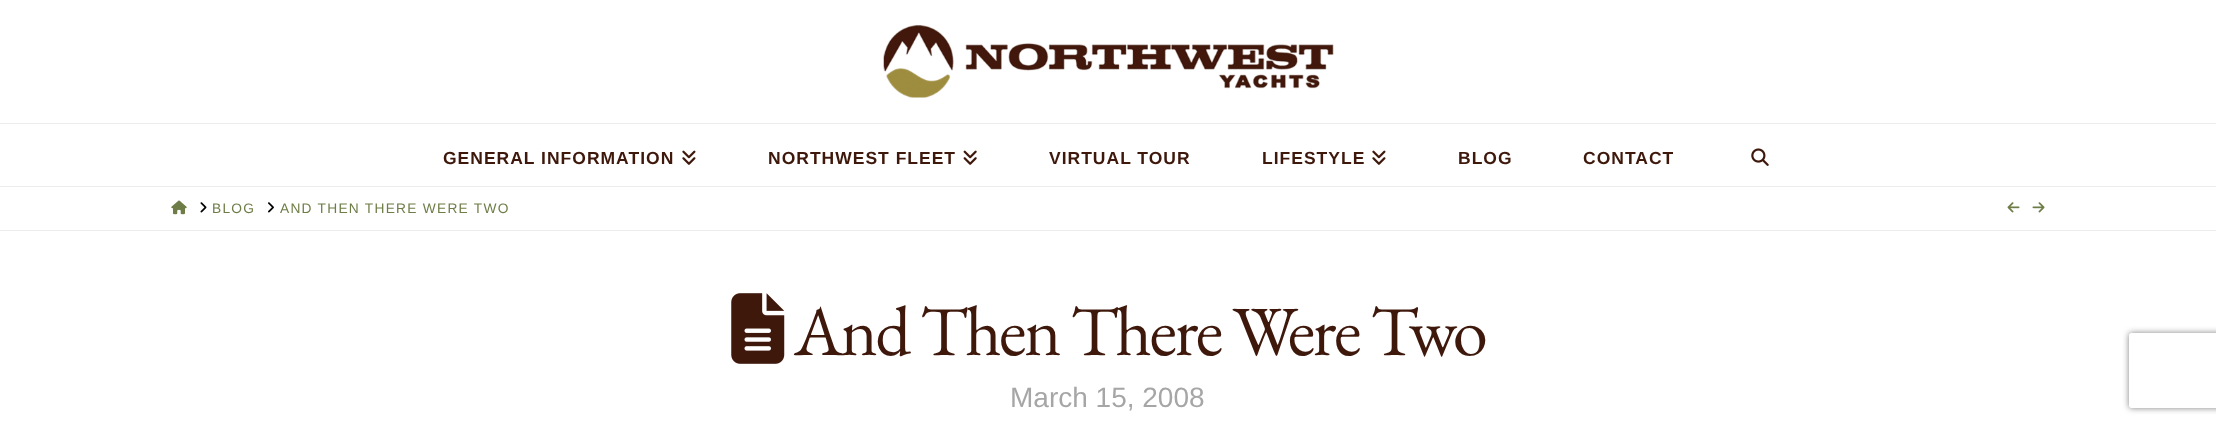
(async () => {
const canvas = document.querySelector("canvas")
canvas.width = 2216
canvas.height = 425
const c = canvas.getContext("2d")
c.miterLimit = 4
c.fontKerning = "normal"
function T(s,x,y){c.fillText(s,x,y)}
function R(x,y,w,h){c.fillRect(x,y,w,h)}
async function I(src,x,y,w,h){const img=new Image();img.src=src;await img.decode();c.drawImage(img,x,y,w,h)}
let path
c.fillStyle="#fff"
R(0,0,2216,425)
c.fillStyle="#ececec"
R(0,123,2216,1)
await I("1.png",883,25,451,73)
R(0,186,2216,1)
c.letterSpacing="1px"
c.font="bold 17.5px Liberation Sans"
c.fillStyle="#3f180c"
T("GENERAL INFORMATION",443,164)
await I("2.png",682,150,14,15)
T("NORTHWEST FLEET",768,164)
await I("3.png",963,150,14,15)
T("VIRTUAL TOUR",1049,164)
T("LIFESTYLE",1262,164)
await I("2.png",1372,150,14,15)
T("BLOG",1458,164)
T("CONTACT",1583,164)
await I("4.png",1751,148,18,18)
c.fillStyle="#ececec"
R(0,230,2216,1)
await I("5.png",171,200,16,15)
await I("6.png",200,202,7,11)
c.letterSpacing="1.25px"
c.font="13.75px Liberation Sans"
c.fillStyle="#6e7d47"
T("BLOG",212,213)
await I("7.png",268,202,6,11)
T("AND THEN THERE WERE TWO",280,213)
await I("8.png",2007,202,13,11)
await I("9.png",2032,202,13,11)
await I("10.png",731,293,54,71)
c.letterSpacing="-2.5px"
c.font="70.75px EB Garamond"
c.fillStyle="#3f180c"
T("And Then There Were Two",794,355)
c.letterSpacing="0px"
c.font="28px Liberation Sans"
c.fillStyle="#a6a6a6"
T("March 15, 2008",1010,407)
c.save()
path = new Path2D("M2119 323h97v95h-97zm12.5 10h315c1.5 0 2.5 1 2.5 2.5v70c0 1.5-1 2.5-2.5 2.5h-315c-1.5 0-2.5-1-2.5-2.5v-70c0-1.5 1-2.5 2.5-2.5z")
c.clip(path,"evenodd")
c.fillStyle="#808080"
c.filter="blur(3px)"
c.beginPath()
c.roundRect(2129,333,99,75,2.5)
c.fill()
c.filter="none"
c.restore()
})()
